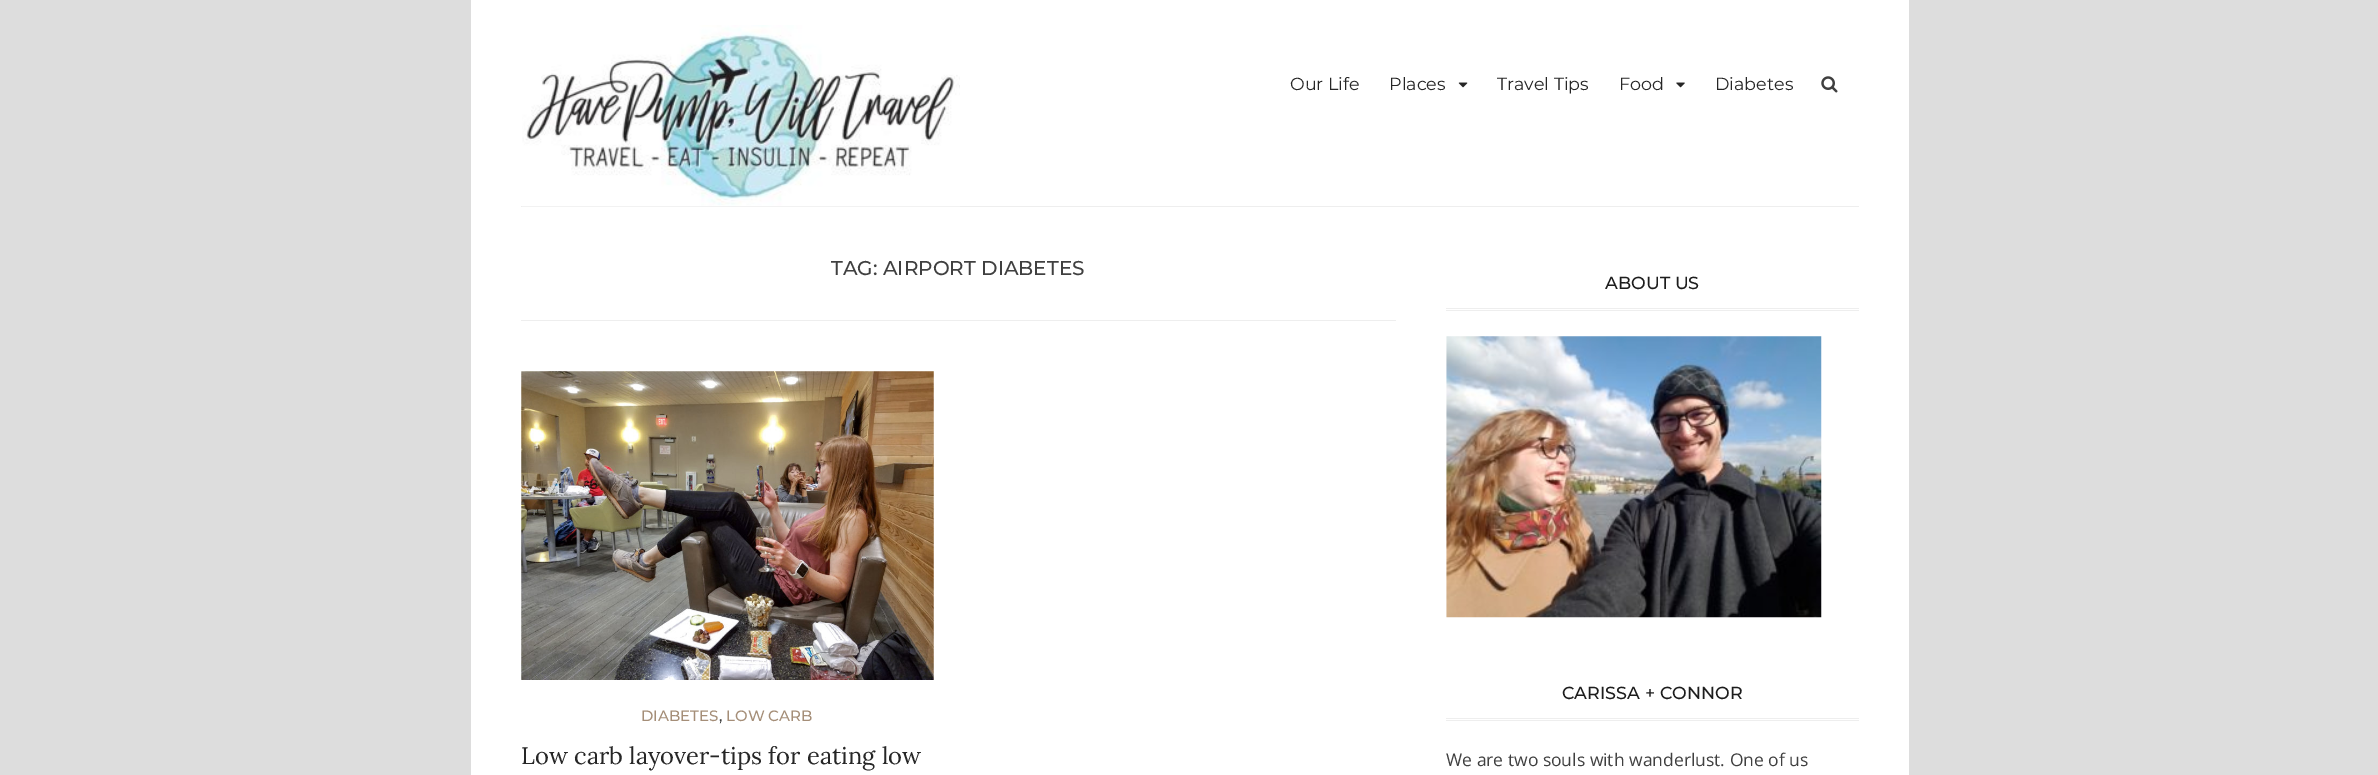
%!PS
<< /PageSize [2378 775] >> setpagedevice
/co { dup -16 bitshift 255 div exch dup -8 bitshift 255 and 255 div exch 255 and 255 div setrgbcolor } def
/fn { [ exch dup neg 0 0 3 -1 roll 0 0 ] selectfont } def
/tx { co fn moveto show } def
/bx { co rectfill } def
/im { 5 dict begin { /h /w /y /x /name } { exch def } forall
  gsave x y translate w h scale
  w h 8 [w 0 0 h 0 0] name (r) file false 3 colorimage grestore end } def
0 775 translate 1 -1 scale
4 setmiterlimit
0 0 2378 775 16#DDDDDD bx
471 0 1438 775 16#FFFFFF bx
521 206 1338 1 16#EEEEEE bx
(media/1.raw) 522 25 438 182 im
(media/2.raw) 1458 82 10 6 im
(media/3.raw) 1676 82 9 6 im
(media/4.raw) 1821 76 17 17 im
521 320 875 1 16#EEEEEE bx
(media/5.raw) 521 371 413 309 im
1446 308 413 1 16#EEEEEE bx
1446 310 413 1 16#EEEEEE bx
(media/6.raw) 1446 336 376 282 im
1446 718 413 1 16#EEEEEE bx
1446 720 413 1 16#EEEEEE bx
(Our Life) 1290 90 /Montserrat-Regular 17.5 16#262626 tx
(Places) 1389 90 /Montserrat-Regular 17.5 16#262626 tx
(Travel Tips) 1497 90 /Montserrat-Regular 17.5 16#262626 tx
(Food) 1619 90 /Montserrat-Regular 17.5 16#262626 tx
(Diabetes) 1715 90 /Montserrat-Regular 17.5 16#262626 tx
(TAG: AIRPORT DIABETES) 831 275 /Montserrat-Medium 20 16#404040 tx
(DIABETES) 641 721 /Montserrat-Medium 15 16#A58E78 tx
(,) 719 721 /Montserrat-Medium 15 16#404040 tx
(LOW CARB) 726 721 /Montserrat-Medium 15 16#A58E78 tx
(Low carb layover-tips for eating low) 521 764 /Lora-Regular 23.75 16#262626 tx
(ABOUT US) 1605 289 /Montserrat-Medium 17.5 16#1D1D1D tx
(CARISSA + CONNOR) 1562 699 /Montserrat-Medium 17.5 16#1D1D1D tx
(We are two souls with wanderlust. One of us) 1446 766 /OpenSans-Regular 17.5 16#404040 tx
showpage
